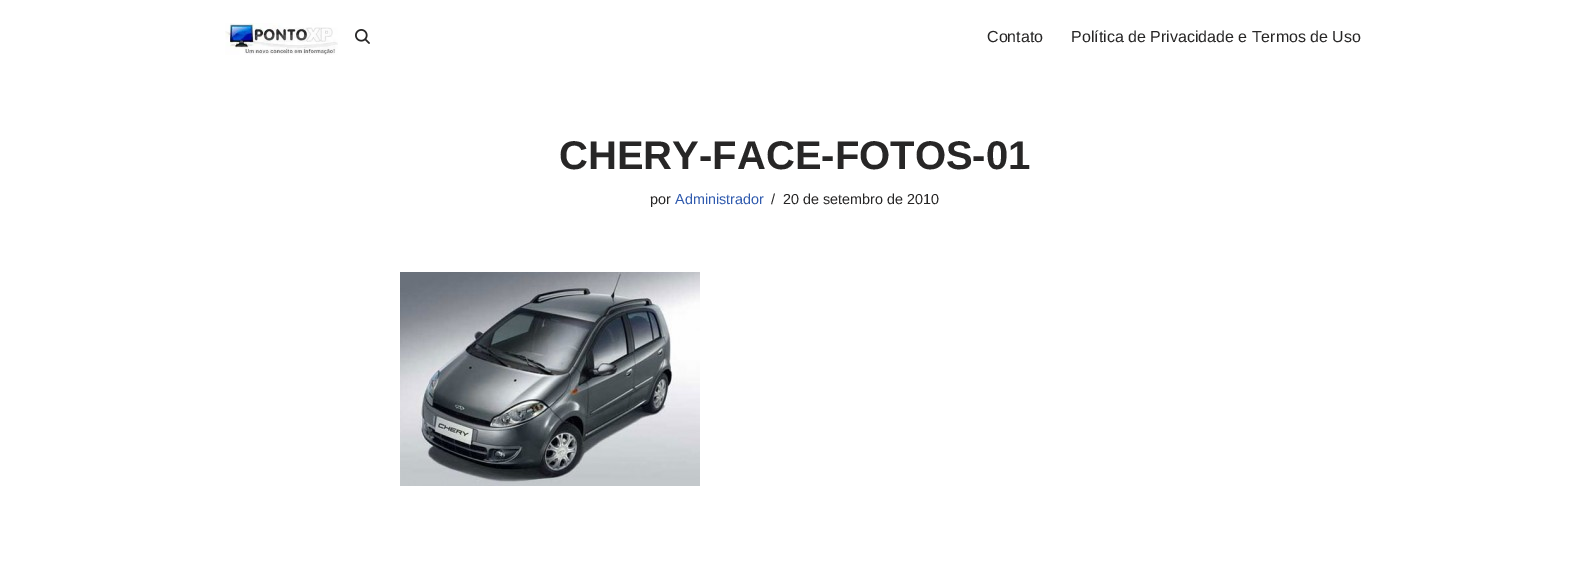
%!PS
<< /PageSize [1589 578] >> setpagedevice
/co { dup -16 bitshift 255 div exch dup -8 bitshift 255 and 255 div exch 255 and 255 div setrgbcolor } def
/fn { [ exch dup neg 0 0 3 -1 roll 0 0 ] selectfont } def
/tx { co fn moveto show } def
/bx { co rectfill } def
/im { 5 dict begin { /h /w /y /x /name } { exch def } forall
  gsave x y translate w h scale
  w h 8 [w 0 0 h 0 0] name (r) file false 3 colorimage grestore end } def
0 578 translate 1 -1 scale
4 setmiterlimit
0 0 1589 578 16#FFFFFF bx
(media/1.raw) 225 23 113 32 im
(media/2.raw) 355 29 15 15 im
(media/3.raw) 400 272 300 214 im
(Contato) 987 42 /LiberationSans-Regular 16 16#272626 tx
(Política de Privacidade e Termos de Uso) 1071 42 /LiberationSans-Regular 16 16#272626 tx
(CHERY-FACE-FOTOS-01) 559 169 /LiberationSans-Bold 40 16#272626 tx
(por) 650 204 /LiberationSans-Regular 14.4 16#272626 tx
(Administrador) 675 204 /LiberationSans-Regular 14.4 16#2F5AAE tx
(/) 771 204 /LiberationSans-Regular 14.4 16#272626 tx
(20 de setembro de 2010) 783 204 /LiberationSans-Regular 14.4 16#272626 tx
showpage
